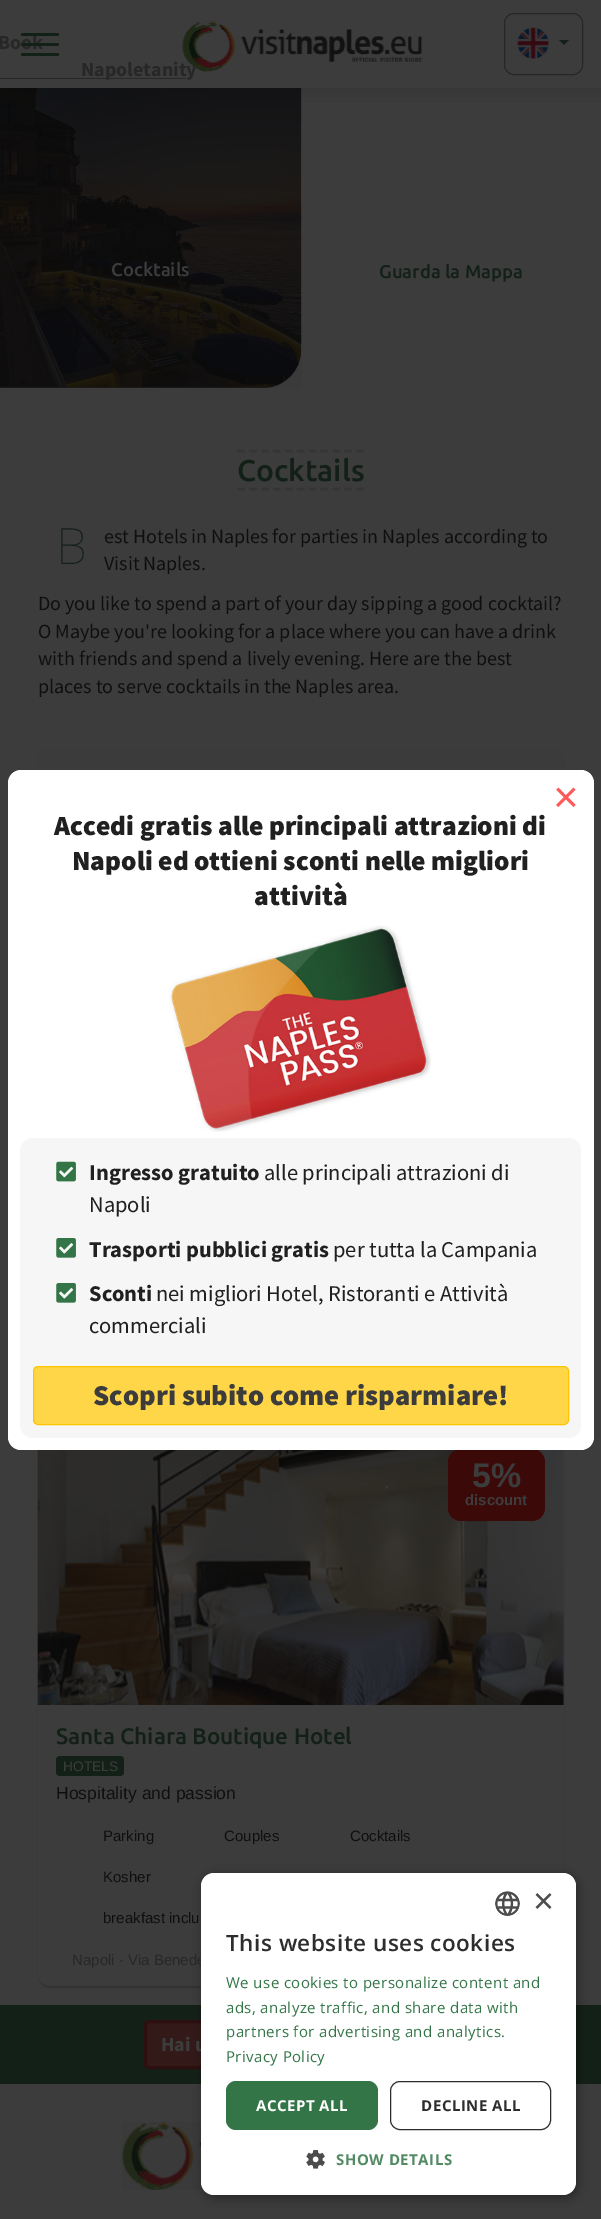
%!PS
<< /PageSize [601 2219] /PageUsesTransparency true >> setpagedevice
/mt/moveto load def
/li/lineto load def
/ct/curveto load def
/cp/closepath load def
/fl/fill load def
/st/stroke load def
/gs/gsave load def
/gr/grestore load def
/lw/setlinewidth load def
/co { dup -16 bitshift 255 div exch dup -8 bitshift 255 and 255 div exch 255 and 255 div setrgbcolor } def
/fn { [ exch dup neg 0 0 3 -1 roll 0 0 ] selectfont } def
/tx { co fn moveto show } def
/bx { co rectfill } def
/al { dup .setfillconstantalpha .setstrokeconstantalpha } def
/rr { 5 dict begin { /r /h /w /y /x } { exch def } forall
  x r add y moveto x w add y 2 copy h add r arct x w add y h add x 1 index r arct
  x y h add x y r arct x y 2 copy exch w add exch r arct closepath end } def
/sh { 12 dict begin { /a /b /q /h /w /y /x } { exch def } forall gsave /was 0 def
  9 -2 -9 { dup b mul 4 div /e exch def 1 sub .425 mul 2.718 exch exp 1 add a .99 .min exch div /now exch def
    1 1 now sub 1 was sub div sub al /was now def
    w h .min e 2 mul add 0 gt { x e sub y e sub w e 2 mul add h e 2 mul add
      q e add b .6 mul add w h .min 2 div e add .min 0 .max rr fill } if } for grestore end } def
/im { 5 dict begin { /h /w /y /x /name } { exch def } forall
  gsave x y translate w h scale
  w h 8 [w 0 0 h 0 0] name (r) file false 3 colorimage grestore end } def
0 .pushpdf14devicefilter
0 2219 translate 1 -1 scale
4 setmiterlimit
0 0 601 2219 16#3C3C3C bx
(media/3.raw) 0 88 302 300 im
0.6 al
16#090909 co
0 75 mt 0 388 li 263 388 li 284 388 301 371 301 350 ct 301 75 li cp fl
1 al
3 3 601 87 0 10 .2 sh
0 0 601 88 16#3C3C3C bx
16#132017 co
21 53 38 3 1.5 rr fl
0 78 186 1 16#272727 bx
(media/1.raw) 182 21 241 51 im
504.5 13.5 78 61 9.5 rr st
(media/2.raw) 517 27 33 32 im
16#132017 co
559 40 mt 569 40 li 564 45 li cp fl
16#353535 co
2.5 lw
[7.5 4.38] 0 setdash
237.5 451 mt 364 451 li st
237.5 489 mt 364 489 li st
16#090909 co
38 750 526 55 10 1 .24 sh
16#3B3B3B co
38 749 526 55 10 rr fl
16#090909 co
38 1431 526 557 13 1 .24 sh
16#3C3C3C co
38 1430 526 556 13 rr fl
(media/4.raw) 37 1450 527 255 im
16#3C0909 co
448 1449 97 72 13 rr fl
16#132017 co
56 1756 68 20 4 rr fl
0 2005 601 79 16#132017 bx
16#341919 co
145.5 2021.5 311 46 3.5 rr gs fl gr
16#2C0F0E co
3 lw
[] 0 setdash
st
(media/5.raw) 122 2122 79 68 im
16#FFFFFF co
8 770 586 680 13 rr fl
(media/6.raw) 169 925 262 207 im
16#F6F6F6 co
20 1138 561 300 13 rr fl
(media/7.raw) 56 1161 20 21 im
(media/8.raw) 56 1238 20 20 im
(media/8.raw) 56 1283 20 20 im
16#FFD647 co
33.5 1366.5 535 58 4.5 rr gs fl gr
16#FDC500 co
1 lw
st
16#000000 co
203 1875 375 323 13 5 .35 sh
(Book) -2 49 /SourceSansPro-Bold 20 16#272727 tx
16#132017 co
21 43 38 3 1.5 rr fl
21 33 38 3 1.5 rr fl
(Napoletanity) 81 76 /SourceSansPro-Bold 20 16#272727 tx
(Cocktails) 111 276 /Ubuntu-Medium 18.5 16#3C3C3C tx
(Guarda la Mappa) 379 278 /Ubuntu-Medium 18.5 16#132017 tx
(Cocktails) 237 481 /Ubuntu-Medium 30 16#132017 tx
(B) 56 564 /NotoSans-Thin 50 16#132017 tx
(est Hotels in Naples for parties in Naples according to) 104 543 /SourceSansPro-Regular 20 16#0F0F0F tx
(Visit Naples.) 104 570 /SourceSansPro-Regular 20 16#0F0F0F tx
(Do you like to spend a part of your day sipping a good cocktail?) 38 610 /SourceSansPro-Regular 20 16#0F0F0F tx
(O Maybe you're looking for a place where you can have a drink) 38 638 /SourceSansPro-Regular 20 16#0F0F0F tx
(with friends and spend a lively evening. Here are the best) 38 665 /SourceSansPro-Regular 20 16#0F0F0F tx
(places to serve cocktails in the Naples area.) 38 693 /SourceSansPro-Regular 20 16#0F0F0F tx
(5%) 472 1487 /LiberationSans-Bold 34 16#3C3C3C tx
(discount) 465 1505 /LiberationSans-Bold 15 16#3C3C3C tx
(Santa Chiara Boutique Hotel) 56 1744 /Ubuntu-Medium 22.5 16#132017 tx
(HOTELS) 63 1771 /LiberationSans-Regular 13.75 16#3C3C3C tx
(Hospitality and passion) 56 1799 /LiberationSans-Regular 17.5 16#0F0F0F tx
(Parking) 103 1841 /LiberationSans-Regular 15 16#0F0F0F tx
(Couples) 224 1841 /LiberationSans-Regular 15 16#0F0F0F tx
(Cocktails) 350 1841 /LiberationSans-Regular 15 16#0F0F0F tx
(Kosher) 103 1882 /LiberationSans-Regular 15 16#0F0F0F tx
(breakfast inclu) 103 1923 /LiberationSans-Regular 15 16#0F0F0F tx
(Napoli - Via Benede) 72 1965 /LiberationSans-Regular 15 16#272727 tx
(Hai u) 161 2051 /SourceSansPro-Bold 20 16#3C3C3C tx
(×) 553 812 /LiberationSans-Regular 44 16#FF5959 tx
(Accedi gratis alle principali attrazioni di) 54 835 /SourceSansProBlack-Black 27.5 16#202020 tx
(Napoli ed ottieni sconti nelle migliori) 72 870 /SourceSansProBlack-Black 27.5 16#202020 tx
(attività) 254 905 /SourceSansProBlack-Black 27.5 16#202020 tx
(Ingresso gratuito) 89 1180 /SourceSansPro-Bold 22.5 16#202020 tx
(alle principali attrazioni di) 264 1180 /SourceSansPro-Regular 22.5 16#202020 tx
(Napoli) 89 1212 /SourceSansPro-Regular 22.5 16#202020 tx
(Trasporti pubblici gratis) 89 1257 /SourceSansPro-Bold 22.5 16#202020 tx
(per tutta la Campania) 333 1257 /SourceSansPro-Regular 22.5 16#202020 tx
(Sconti) 89 1301 /SourceSansPro-Bold 22.5 16#202020 tx
(nei migliori Hotel, Ristoranti e Attività) 156 1301 /SourceSansPro-Regular 22.5 16#202020 tx
(commerciali) 89 1333 /SourceSansPro-Regular 22.5 16#202020 tx
(Scopri subito come risparmiare!) 93 1405 /SourceSansProBlack-Black 28.75 16#3C3C3C tx
16#FFFFFF co
201 1873 375 322 13 rr fl
(media/9.raw) 495 1891 25 25 im
(×) 533 1913 /LiberationSans-Regular 36 16#4D4D4D tx
/OpenSans-SemiBold 22.5 fn
16#2D2D2D co
226 1951 mt .5 0 (This website uses cookies) ashow
/OpenSans-Regular 15 fn
16#337547 co
226 1988 mt .4 0 (We use cookies to personalize content and) ashow
226 2013 mt .4 0 (ads, analyze traffic, and share data with) ashow
226 2037 mt .4 0 (partners for advertising and analytics.) ashow
226 2062 mt .4 0 (Privacy Policy) ashow
226 2081 152 49 10 rr fl
/OpenSans-Bold 15 fn
16#FFFFFF co
256 2111 mt .5 0 (ACCEPT ALL) ashow
16#2D2D2D co
390.5 2081.5 160 48 9.5 rr st
421 2111 mt .5 0 (DECLINE ALL) ashow
(media/10.raw) 306 2150 19 19 im
16#528A63 co
336 2165 mt .5 0 (SHOW DETAILS) ashow
.poppdf14devicefilter showpage
